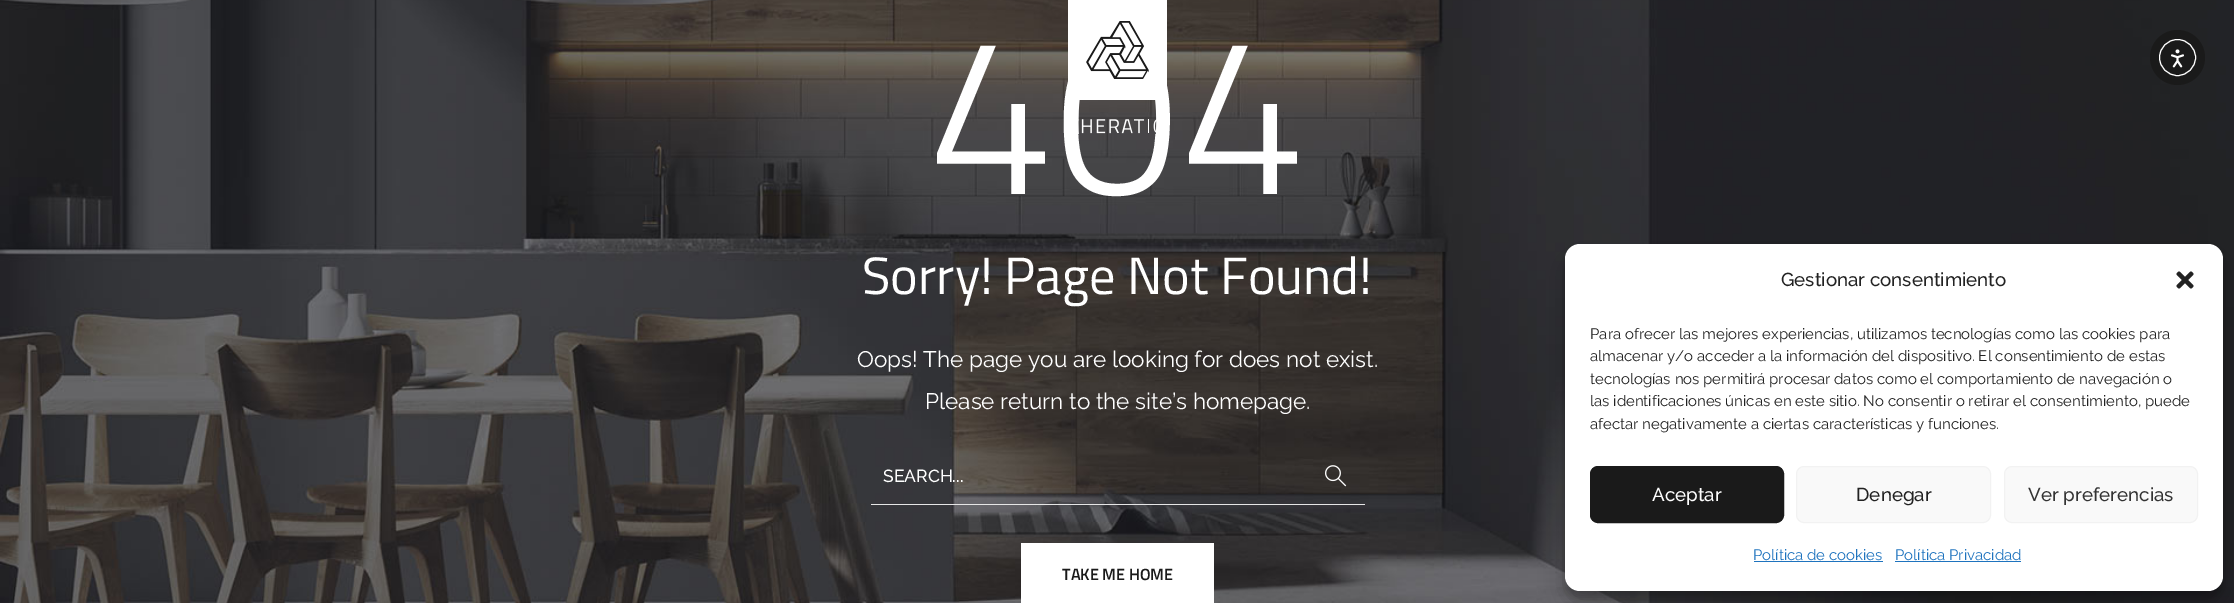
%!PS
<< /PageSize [2234 603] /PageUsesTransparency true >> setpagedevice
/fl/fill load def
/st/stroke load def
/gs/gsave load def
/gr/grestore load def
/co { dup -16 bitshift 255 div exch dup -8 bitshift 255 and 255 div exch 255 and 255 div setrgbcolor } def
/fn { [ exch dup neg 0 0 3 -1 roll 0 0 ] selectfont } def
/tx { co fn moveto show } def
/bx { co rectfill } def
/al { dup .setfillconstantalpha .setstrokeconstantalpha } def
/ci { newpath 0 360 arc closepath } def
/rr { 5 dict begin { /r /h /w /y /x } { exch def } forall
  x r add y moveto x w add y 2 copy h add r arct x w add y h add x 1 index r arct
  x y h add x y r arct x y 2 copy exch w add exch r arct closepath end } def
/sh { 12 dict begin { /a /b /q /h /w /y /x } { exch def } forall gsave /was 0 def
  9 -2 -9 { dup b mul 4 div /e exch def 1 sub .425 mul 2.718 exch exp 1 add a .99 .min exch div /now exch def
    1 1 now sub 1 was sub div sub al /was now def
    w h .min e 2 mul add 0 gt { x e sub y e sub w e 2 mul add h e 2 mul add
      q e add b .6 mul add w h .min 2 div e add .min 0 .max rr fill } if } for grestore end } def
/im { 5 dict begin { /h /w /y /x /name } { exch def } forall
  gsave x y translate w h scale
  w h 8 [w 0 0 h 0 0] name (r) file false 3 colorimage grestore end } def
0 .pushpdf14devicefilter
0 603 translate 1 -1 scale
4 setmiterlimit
0 0 2234 603 16#FFFFFF bx
(media/1.raw) 0 0 2234 603 im
871 504 494 1 16#E6E6E6 bx
(media/3.raw) 1325 465 22 22 im
1021 543 193 60 16#FFFFFF bx
16#1A1A1A co
2177.5 57.5 27.5 ci fl
16#FFFFFF co
2177.5 57.5 18 ci st
(media/4.raw) 2170 49 14 19 im
16#000000 co
1565 251 658 348 15 4 .23 sh
1565 256 658 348 15 12.5 .19 sh
16#FFFFFF co
1565 244 658 347 15 rr fl
(media/5.raw) 2176 271 18 18 im
16#1A1A1A co
1590.5 466.5 193 56 7.5 rr gs fl gr
st
16#F9F9F9 co
1796.5 466.5 194 56 7.5 rr gs fl gr
16#F2F2F2 co
st
16#F9F9F9 co
2004.5 466.5 193 56 7.5 rr gs fl gr
16#F2F2F2 co
st
1754 561 129 1 16#1E73BE bx
1895 561 126 1 16#1E73BE bx
(404) 928 194 /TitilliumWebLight-Light 225 16#FFFFFF tx
(media/2.raw) 1068 0 99 134 im
(Sorry! Page Not Found!) 862 294 /TitilliumWeb-Regular 52.5 16#FFFFFF tx
(Oops! The page you are looking for does not exist.) 857 367 /Raleway-Regular 22.5 16#FFFFFF tx
(Please return to the site’s homepage.) 925 409 /Raleway-Regular 22.5 16#FFFFFF tx
(SEARCH...) 883 482 /Raleway-Medium 17.5 16#FFFFFF tx
(TAKE ME HOME) 1062 580 /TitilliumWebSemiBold-SemiBold 16.25 16#1A1A1A tx
(Gestionar consentimiento) 1781 286 /Raleway-Medium 18.75 16#222222 tx
(Para ofrecer las mejores experiencias, utilizamos tecnologías como las cookies para) 1590 339 /Raleway-Regular 15 16#222222 tx
(almacenar y/o acceder a la información del dispositivo. El consentimiento de estas) 1590 361 /Raleway-Regular 15 16#222222 tx
(tecnologías nos permitirá procesar datos como el comportamiento de navegación o) 1590 384 /Raleway-Regular 15 16#222222 tx
(las identificaciones únicas en este sitio. No consentir o retirar el consentimiento, puede) 1590 406 /Raleway-Regular 15 16#222222 tx
(afectar negativamente a ciertas características y funciones.) 1590 429 /Raleway-Regular 15 16#222222 tx
(Aceptar) 1652 501 /Raleway-Medium 18.75 16#FFFFFF tx
(Denegar) 1856 501 /Raleway-Medium 18.75 16#222222 tx
(Ver preferencias) 2028 501 /Raleway-Medium 18.75 16#333333 tx
(Política de cookies) 1753 560 /Raleway-Regular 15 16#1E73BE tx
(Política Privacidad) 1895 560 /Raleway-Regular 15 16#1E73BE tx
.poppdf14devicefilter showpage
